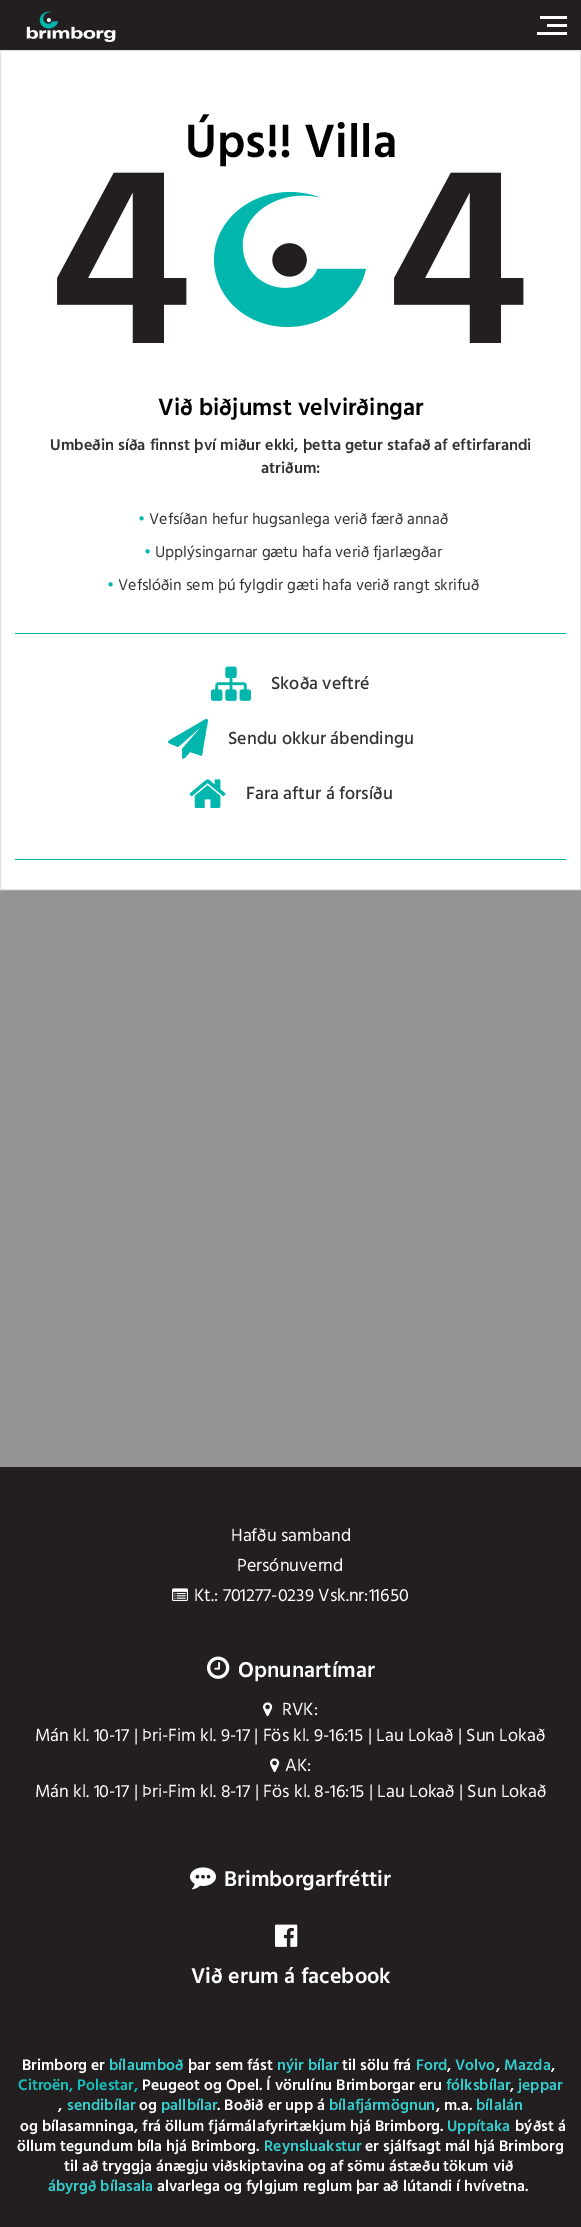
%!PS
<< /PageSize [581 2227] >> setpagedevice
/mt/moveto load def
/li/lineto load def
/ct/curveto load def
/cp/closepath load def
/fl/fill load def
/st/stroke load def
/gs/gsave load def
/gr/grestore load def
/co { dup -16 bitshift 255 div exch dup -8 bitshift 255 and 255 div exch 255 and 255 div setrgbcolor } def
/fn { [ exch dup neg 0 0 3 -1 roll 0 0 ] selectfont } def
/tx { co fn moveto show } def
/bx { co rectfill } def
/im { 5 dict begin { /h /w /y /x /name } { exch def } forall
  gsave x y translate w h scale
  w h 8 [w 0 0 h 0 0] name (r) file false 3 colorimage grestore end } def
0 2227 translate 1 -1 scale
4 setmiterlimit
0 0 581 2227 16#949494 bx
0 0 581 50 16#231F20 bx
(media/1.raw) 26 11 90 31 im
540 16 27 3 16#FFFFFF bx
547 24 20 3 16#FFFFFF bx
537 32 30 3 16#FFFFFF bx
.5 50.5 mt 580.5 50.5 li 580.5 889.5 li .5 889.5 li cp gs fl gr
16#E4E4E4 co
st
(media/2.raw) 57 172 467 171 im
15 633 551 1 16#00B6AD bx
15 859 551 1 16#00B6AD bx
(media/3.raw) 211 666 40 35 im
207 719 mt 208 720 li 203 749 li 202 755 203 757 199 755 ct 190 752 li 182 761 182 762 182 749 ct 202 726 li 178 747 li 167 742 164 743 175 737 ct 206 719 li cp fl
(media/4.raw) 189 779 37 29 im
0 1467 581 760 16#231F20 bx
(media/5.raw) 172 1588 16 13 im
(media/6.raw) 207 1656 23 23 im
(media/7.raw) 263 1702 10 15 im
(media/7.raw) 270 1758 10 15 im
(media/8.raw) 190 1867 26 23 im
(media/9.raw) 275 1924 23 23 im
(Úps!! Villa) 185 157 /Hind-SemiBold 48 16#000000 tx
(Við biðjumst velvirðingar) 158 415 /Hind-SemiBold 24 16#000000 tx
(Umbeðin síða finnst því miður ekki, þetta getur stafað af eftirfarandi) 50 450 /Hind-SemiBold 16 16#333333 tx
(atriðum:) 261 473 /Hind-SemiBold 16 16#333333 tx
(•) 138 524 /Hind-Regular 16 16#00B6AD tx
(Vefsíðan hefur hugsanlega verið færð annað) 149 524 /Hind-Regular 16 16#333333 tx
(•) 144 557 /Hind-Regular 16 16#00B6AD tx
(Upplýsingarnar gætu hafa verið fjarlægðar) 155 557 /Hind-Regular 16 16#333333 tx
(•) 107 590 /Hind-Regular 16 16#00B6AD tx
(Vefslóðin sem þú fylgdir gæti hafa verið rangt skrifuð) 118 590 /Hind-Regular 16 16#333333 tx
(Skoða veftré) 271 689 /Hind-Medium 18 16#333333 tx
(Sendu okkur ábendingu) 228 744 /Hind-Medium 18 16#333333 tx
(Fara aftur á forsíðu) 246 799 /Hind-Medium 18 16#333333 tx
(Hafðu samband) 231 1541 /Hind-Regular 18 16#FFFFFF tx
(Persónuvernd) 237 1571 /Hind-Regular 18 16#FFFFFF tx
(Kt.: 701277-0239 Vsk.nr:11650) 194 1601 /Hind-Regular 18 16#FFFFFF tx
(Opnunartímar) 238 1677 /Hind-SemiBold 22 16#FFFFFF tx
(RVK:) 282 1715 /Hind-Regular 18 16#FFFFFF tx
(Mán kl. 10-17 | Þri-Fim kl. 9-17 | Fös kl. 9-16:15 | Lau Lokað | Sun Lokað) 35 1741 /Hind-Regular 18 16#FFFFFF tx
(AK:) 285 1771 /Hind-Regular 18 16#FFFFFF tx
(Mán kl. 10-17 | Þri-Fim kl. 8-17 | Fös kl. 8-16:15 | Lau Lokað | Sun Lokað) 35 1797 /Hind-Regular 18 16#FFFFFF tx
(Brimborgarfréttir) 224 1886 /Hind-SemiBold 22 16#FFFFFF tx
(Við erum á facebook) 191 1983 /Hind-SemiBold 22 16#FFFFFF tx
(Brimborg er) 22 2070 /Hind-SemiBold 15.75 16#FFFFFF tx
(bílaumboð) 109 2070 /Hind-SemiBold 15.75 16#33CCCC tx
(þar sem fást) 188 2070 /Hind-SemiBold 15.75 16#FFFFFF tx
(nýir bílar) 277 2070 /Hind-SemiBold 15.75 16#33CCCC tx
(til sölu frá) 342 2070 /Hind-SemiBold 15.75 16#FFFFFF tx
(Ford) 416 2070 /Hind-SemiBold 15.75 16#33CCCC tx
(,) 447 2070 /Hind-SemiBold 15.75 16#FFFFFF tx
(Volvo) 455 2070 /Hind-SemiBold 15.75 16#33CCCC tx
(,) 496 2070 /Hind-SemiBold 15.75 16#FFFFFF tx
(Mazda) 504 2070 /Hind-SemiBold 15.75 16#33CCCC tx
(,) 551 2070 /Hind-SemiBold 15.75 16#FFFFFF tx
(Citroën, Polestar,) 18 2090 /Hind-SemiBold 15.75 16#15C2BA tx
(Peugeot og Opel. Í vörulínu Brimborgar eru) 142 2090 /Hind-SemiBold 15.75 16#FFFFFF tx
(fólksbílar) 446 2090 /Hind-SemiBold 15.75 16#33CCCC tx
(,) 510 2090 /Hind-SemiBold 15.75 16#FFFFFF tx
(jeppar) 518 2090 /Hind-SemiBold 15.75 16#33CCCC tx
(,) 58 2110 /Hind-SemiBold 15.75 16#FFFFFF tx
(sendibílar) 67 2110 /Hind-SemiBold 15.75 16#33CCCC tx
(og) 139 2110 /Hind-SemiBold 15.75 16#FFFFFF tx
(pallbílar) 161 2110 /Hind-SemiBold 15.75 16#33CCCC tx
(. Boðið er upp á) 217 2110 /Hind-SemiBold 15.75 16#FFFFFF tx
(bílafjármögnun) 329 2110 /Hind-SemiBold 15.75 16#33CCCC tx
(, m.a.) 436 2110 /Hind-SemiBold 15.75 16#FFFFFF tx
(bílalán) 476 2110 /Hind-SemiBold 15.75 16#33CCCC tx
(og bílasamninga, frá öllum fjármálafyrirtækjum hjá Brimborg.) 20 2131 /Hind-SemiBold 15.75 16#FFFFFF tx
(Uppítaka) 447 2131 /Hind-SemiBold 15.75 16#33CCCC tx
(býðst á) 515 2131 /Hind-SemiBold 15.75 16#FFFFFF tx
(öllum tegundum bíla hjá Brimborg.) 17 2151 /Hind-SemiBold 15.75 16#FFFFFF tx
(Reynsluakstur) 264 2151 /Hind-SemiBold 15.75 16#33CCCC tx
(er sjálfsagt mál hjá Brimborg) 365 2151 /Hind-SemiBold 15.75 16#FFFFFF tx
(til að tryggja ánægju viðskiptavina og af sömu ástæðu tökum við) 64 2171 /Hind-SemiBold 15.75 16#FFFFFF tx
(ábyrgð bílasala) 48 2191 /Hind-SemiBold 15.75 16#33CCCC tx
(alvarlega og fylgjum reglum þar að lútandi í hvívetna.) 157 2191 /Hind-SemiBold 15.75 16#FFFFFF tx
showpage
